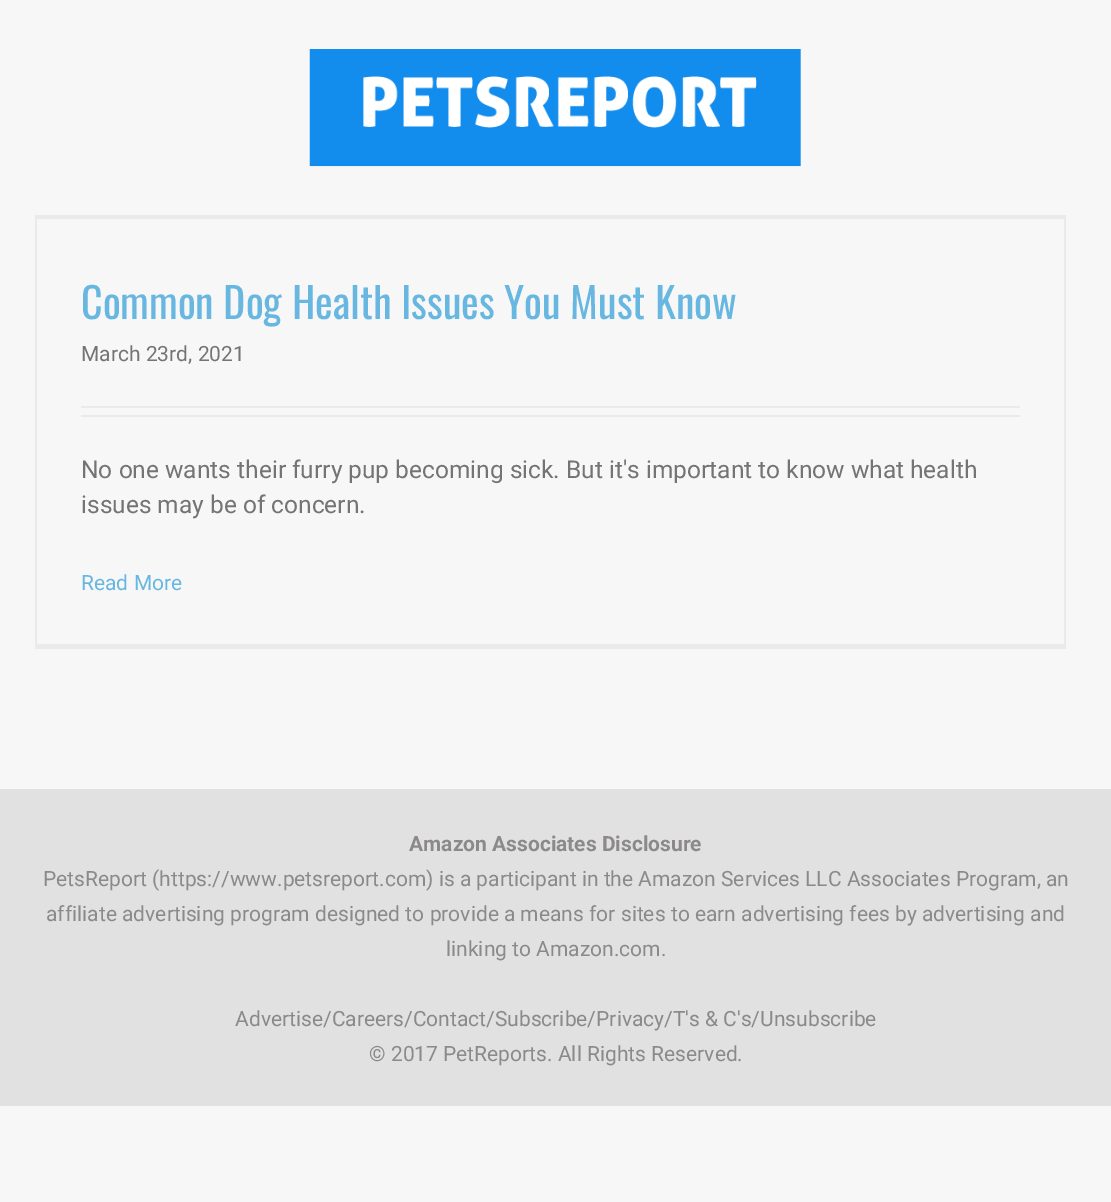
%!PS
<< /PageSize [1111 1202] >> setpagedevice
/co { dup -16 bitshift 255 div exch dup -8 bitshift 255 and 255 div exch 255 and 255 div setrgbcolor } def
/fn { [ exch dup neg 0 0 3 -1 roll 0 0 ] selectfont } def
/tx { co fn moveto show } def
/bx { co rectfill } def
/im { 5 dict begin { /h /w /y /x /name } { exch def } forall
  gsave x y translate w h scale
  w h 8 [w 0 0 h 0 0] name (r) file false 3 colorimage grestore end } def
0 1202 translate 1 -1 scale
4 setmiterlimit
0 0 1111 1202 16#F7F7F7 bx
(media/1.raw) 309 49 492 118 im
35 215 1031 2 16#EBEAEA bx
1064 215 2 434 16#EBEAEA bx
35 644 1031 5 16#EBEAEA bx
35 215 2 434 16#EBEAEA bx
37 217 1027 2 16#EBEAEA bx
81 406 939 2 16#EBEAEA bx
81 415 939 2 16#EBEAEA bx
0 789 1111 317 16#E1E1E1 bx
(Common Dog Health Issues You Must Know) 81 319 /Oswald-Regular 42 16#67B7E1 tx
(March 23rd, 2021) 81 361 /Roboto-Regular 21 16#747474 tx
(No one wants their furry pup becoming sick. But it's important to know what health) 81 478 /Roboto-Regular 24.5 16#747474 tx
(issues may be of concern.) 81 513 /Roboto-Regular 24.5 16#747474 tx
(Read More) 81 590 /Roboto-Regular 21 16#67B7E1 tx
(Amazon Associates Disclosure) 409 851 /Roboto-Bold 21 16#8C8989 tx
(PetsReport \(https://www.petsreport.com\) is a participant in the Amazon Services LLC Associates Program, an) 43 886 /Roboto-Regular 21 16#8C8989 tx
(affiliate advertising program designed to provide a means for sites to earn advertising fees by advertising and) 46 921 /Roboto-Regular 21 16#8C8989 tx
(linking to Amazon.com.) 446 956 /Roboto-Regular 21 16#8C8989 tx
(Advertise/Careers/Contact/Subscribe/Privacy/T's & C's/Unsubscribe) 235 1026 /Roboto-Regular 21 16#8C8989 tx
(© 2017 PetReports. All Rights Reserved.) 369 1061 /Roboto-Regular 21 16#8C8989 tx
showpage
